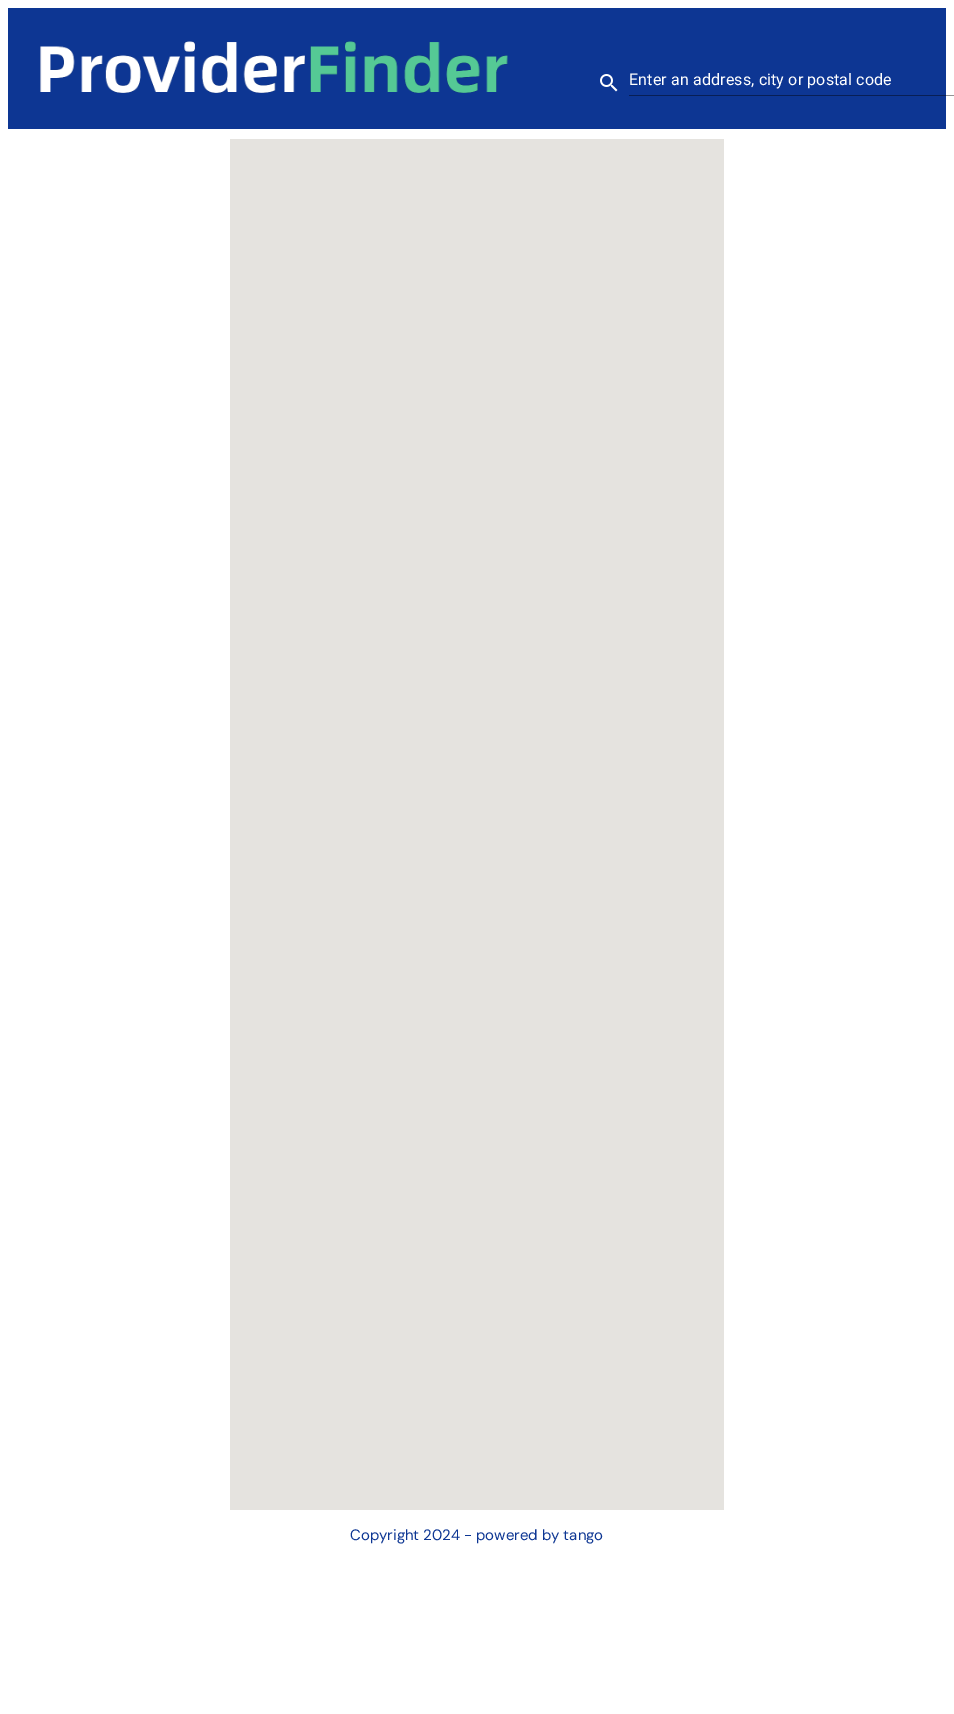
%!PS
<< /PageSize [954 1714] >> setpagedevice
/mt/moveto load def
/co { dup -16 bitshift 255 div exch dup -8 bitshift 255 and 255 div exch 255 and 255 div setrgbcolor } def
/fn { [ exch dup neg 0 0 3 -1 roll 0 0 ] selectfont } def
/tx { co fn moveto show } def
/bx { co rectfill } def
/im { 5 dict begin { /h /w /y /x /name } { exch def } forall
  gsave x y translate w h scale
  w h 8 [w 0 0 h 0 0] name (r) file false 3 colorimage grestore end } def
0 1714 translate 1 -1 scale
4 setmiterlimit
0 0 954 1714 16#FFFFFF bx
946 95 8 1 16#949494 bx
8 8 938 121 16#0D3693 bx
629 95 317 1 16#081F55 bx
(media/1.raw) 40 41 468 52 im
(media/2.raw) 600 74 18 18 im
230 139 494 1371 16#E5E3DF bx
/Roboto-Regular 16 fn
16#FFFFFF co
629 85 mt .15 0 (Enter an address, city or postal code) ashow
(Copyright 2024 - powered by tango) 350 1540 /DMSans-Regular 15 16#0D3693 tx
showpage
